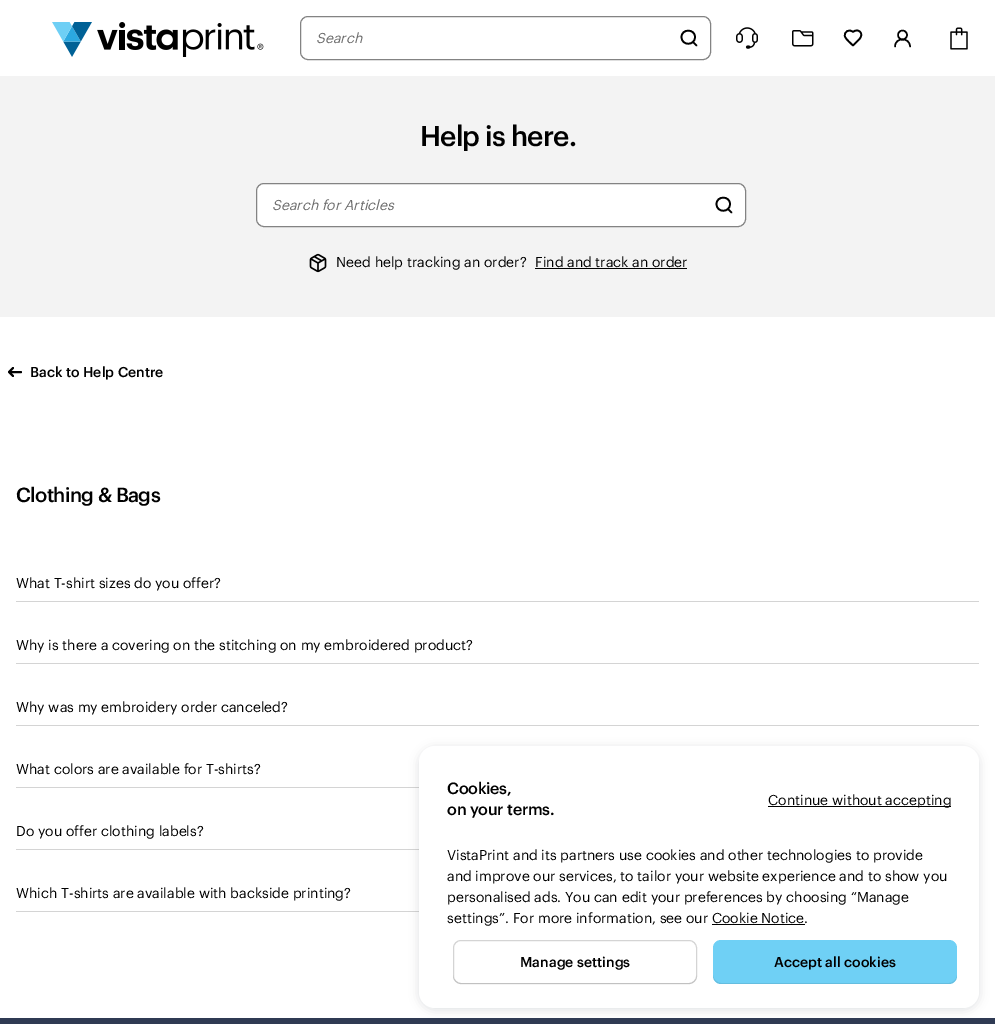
%!PS
<< /PageSize [995 1024] /PageUsesTransparency true >> setpagedevice
/mt/moveto load def
/li/lineto load def
/ct/curveto load def
/cp/closepath load def
/fl/fill load def
/st/stroke load def
/gs/gsave load def
/gr/grestore load def
/lw/setlinewidth load def
/co { dup -16 bitshift 255 div exch dup -8 bitshift 255 and 255 div exch 255 and 255 div setrgbcolor } def
/fn { [ exch dup neg 0 0 3 -1 roll 0 0 ] selectfont } def
/tx { co fn moveto show } def
/bx { co rectfill } def
/al { dup .setfillconstantalpha .setstrokeconstantalpha } def
/ci { newpath 0 360 arc closepath } def
/rr { 5 dict begin { /r /h /w /y /x } { exch def } forall
  x r add y moveto x w add y 2 copy h add r arct x w add y h add x 1 index r arct
  x y h add x y r arct x y 2 copy exch w add exch r arct closepath end } def
/sh { 12 dict begin { /a /b /q /h /w /y /x } { exch def } forall gsave /was 0 def
  9 -2 -9 { dup b mul 4 div /e exch def 1 sub .425 mul 2.718 exch exp 1 add a .99 .min exch div /now exch def
    1 1 now sub 1 was sub div sub al /was now def
    w h .min e 2 mul add 0 gt { x e sub y e sub w e 2 mul add h e 2 mul add
      q e add b .6 mul add w h .min 2 div e add .min 0 .max rr fill } if } for grestore end } def
/im { 5 dict begin { /h /w /y /x /name } { exch def } forall
  gsave x y translate w h scale
  w h 8 [w 0 0 h 0 0] name (r) file false 3 colorimage grestore end } def
0 .pushpdf14devicefilter
0 1024 translate 1 -1 scale
4 setmiterlimit
0 0 995 1024 16#FFFFFF bx
(media/1.raw) 52 22 212 35 im
16#838383 co
300.5 16.5 410 43 7.5 rr st
16#000000 co
1.7 lw
1 setlinecap
1 setlinejoin
696.5 45.5 mt 693 42 li 695 37 mt 695 46 681.5 46 681.5 37 ct 681.5 28.5 695 28.5 695 37 ct cp st
(media/2.raw) 736 27 22 22 im
(media/3.raw) 792 30 22 17 im
859 39.5 mt 865 33.5 858 27.5 853 32 ct 849.5 28.5 843.5 31.5 845 36.5 ct 846 39.5 851 43.5 853 45.5 ct cp st
1.5 lw
0 setlinecap
0 setlinejoin
902.5 35 4.5 ci st
1 setlinecap
1 setlinejoin
895 46.5 mt 895 37 910 37 910 46.5 ct st
(media/4.raw) 950 27 18 23 im
0 76 995 241 16#F3F3F3 bx
16#FFFFFF co
256.5 183.5 489 43 7.5 rr gs fl gr
16#838383 co
1 lw
0 setlinecap
0 setlinejoin
st
16#000000 co
1.7 lw
1 setlinecap
1 setlinejoin
731.5 212.5 mt 728 209 li 730 204 mt 730 213 716.5 213 716.5 204 ct 716.5 195.5 730 195.5 730 204 ct cp st
(media/5.raw) 309 253 18 20 im
535 268 152 1 16#000000 bx
2 lw
21 372 mt 11 372 li 13 376 mt 9 372 li 13 368 li st
16 601 963 1 16#D4D4D4 bx
16 663 963 1 16#D4D4D4 bx
16 725 963 1 16#D4D4D4 bx
16 787 403 1 16#D4D4D4 bx
16 849 403 1 16#D4D4D4 bx
16 911 403 1 16#D4D4D4 bx
0 1018 995 6 16#2F3A53 bx
16#00111A co
419 748 560 262 16 5 .12 sh
16#FFFFFF co
419 746 560 262 16 rr fl
768 806 183 1 16#000000 bx
712 924 93 1 16#000000 bx
16#D4D4D4 co
1 lw
0 setlinecap
0 setlinejoin
453.5 940.5 243 43 7.5 rr st
0.09 al
16#000000 co
453 975 mt 453 976 li 453 980 457 984 461 984 ct 689 984 li 693 984 697 980 697 976 ct 697 975 li 697 979 693 983 689 983 ct 461 983 li 457 983 453 979 453 975 ct cp fl
1 al
16#6FD0F5 co
713 940 244 44 8 rr fl
0.09 al
16#000000 co
713 975 mt 713 976 li 713 980 717 984 721 984 ct 949 984 li 953 984 957 980 957 976 ct 957 975 li 957 979 953 983 949 983 ct 721 983 li 717 983 713 979 713 975 ct cp fl
1 al
(Search) 316 43 /Graphik-Italic 14 16#6C6C6C tx
/Graphik-Medium 28 fn
16#000000 co
420 146 mt -.8 0 (Help is here.) ashow
(Search for Articles) 272 210 /Graphik-Italic 14 16#6C6C6C tx
(Need help tracking an order?) 336 267 /Graphik-Regular 14 16#000000 tx
(Find and track an order) 535 267 /Graphik-Regular 14 16#000000 tx
(Back to Help Centre) 30 377 /Graphik-Medium 14 16#000000 tx
/Graphik-Medium 20 fn
16 502 mt -.6 0 (Clothing & Bags) ashow
(What T-shirt sizes do you offer?) 16 588 /Graphik-Regular 14 16#000000 tx
(Why is there a covering on the stitching on my embroidered product?) 16 650 /Graphik-Regular 14 16#000000 tx
(Why was my embroidery order canceled?) 16 712 /Graphik-Regular 14 16#000000 tx
(What colors are available for T-shirts?) 16 774 /Graphik-Regular 14 16#000000 tx
(Do you offer clothing labels?) 16 836 /Graphik-Regular 14 16#000000 tx
(Which T-shirts are available with backside printing?) 16 898 /Graphik-Regular 14 16#000000 tx
/Graphik-Medium 16 fn
447 794 mt -.25 0 (Cookies,) ashow
447 815 mt -.25 0 (on your terms.) ashow
(Continue without accepting) 768 805 /Graphik-Regular 14 16#000000 tx
(VistaPrint and its partners use cookies and other technologies to provide) 447 860 /Graphik-Regular 14 16#000000 tx
(and improve our services, to tailor your website experience and to show you) 447 881 /Graphik-Regular 14 16#000000 tx
(personalised ads. You can edit your preferences by choosing “Manage) 447 902 /Graphik-Regular 14 16#000000 tx
(settings”. For more information, see our Cookie Notice.) 447 923 /Graphik-Regular 14 16#000000 tx
(Manage settings) 520 967 /Graphik-Medium 14 16#000000 tx
(Accept all cookies) 774 967 /Graphik-Medium 14 16#000000 tx
.poppdf14devicefilter showpage
